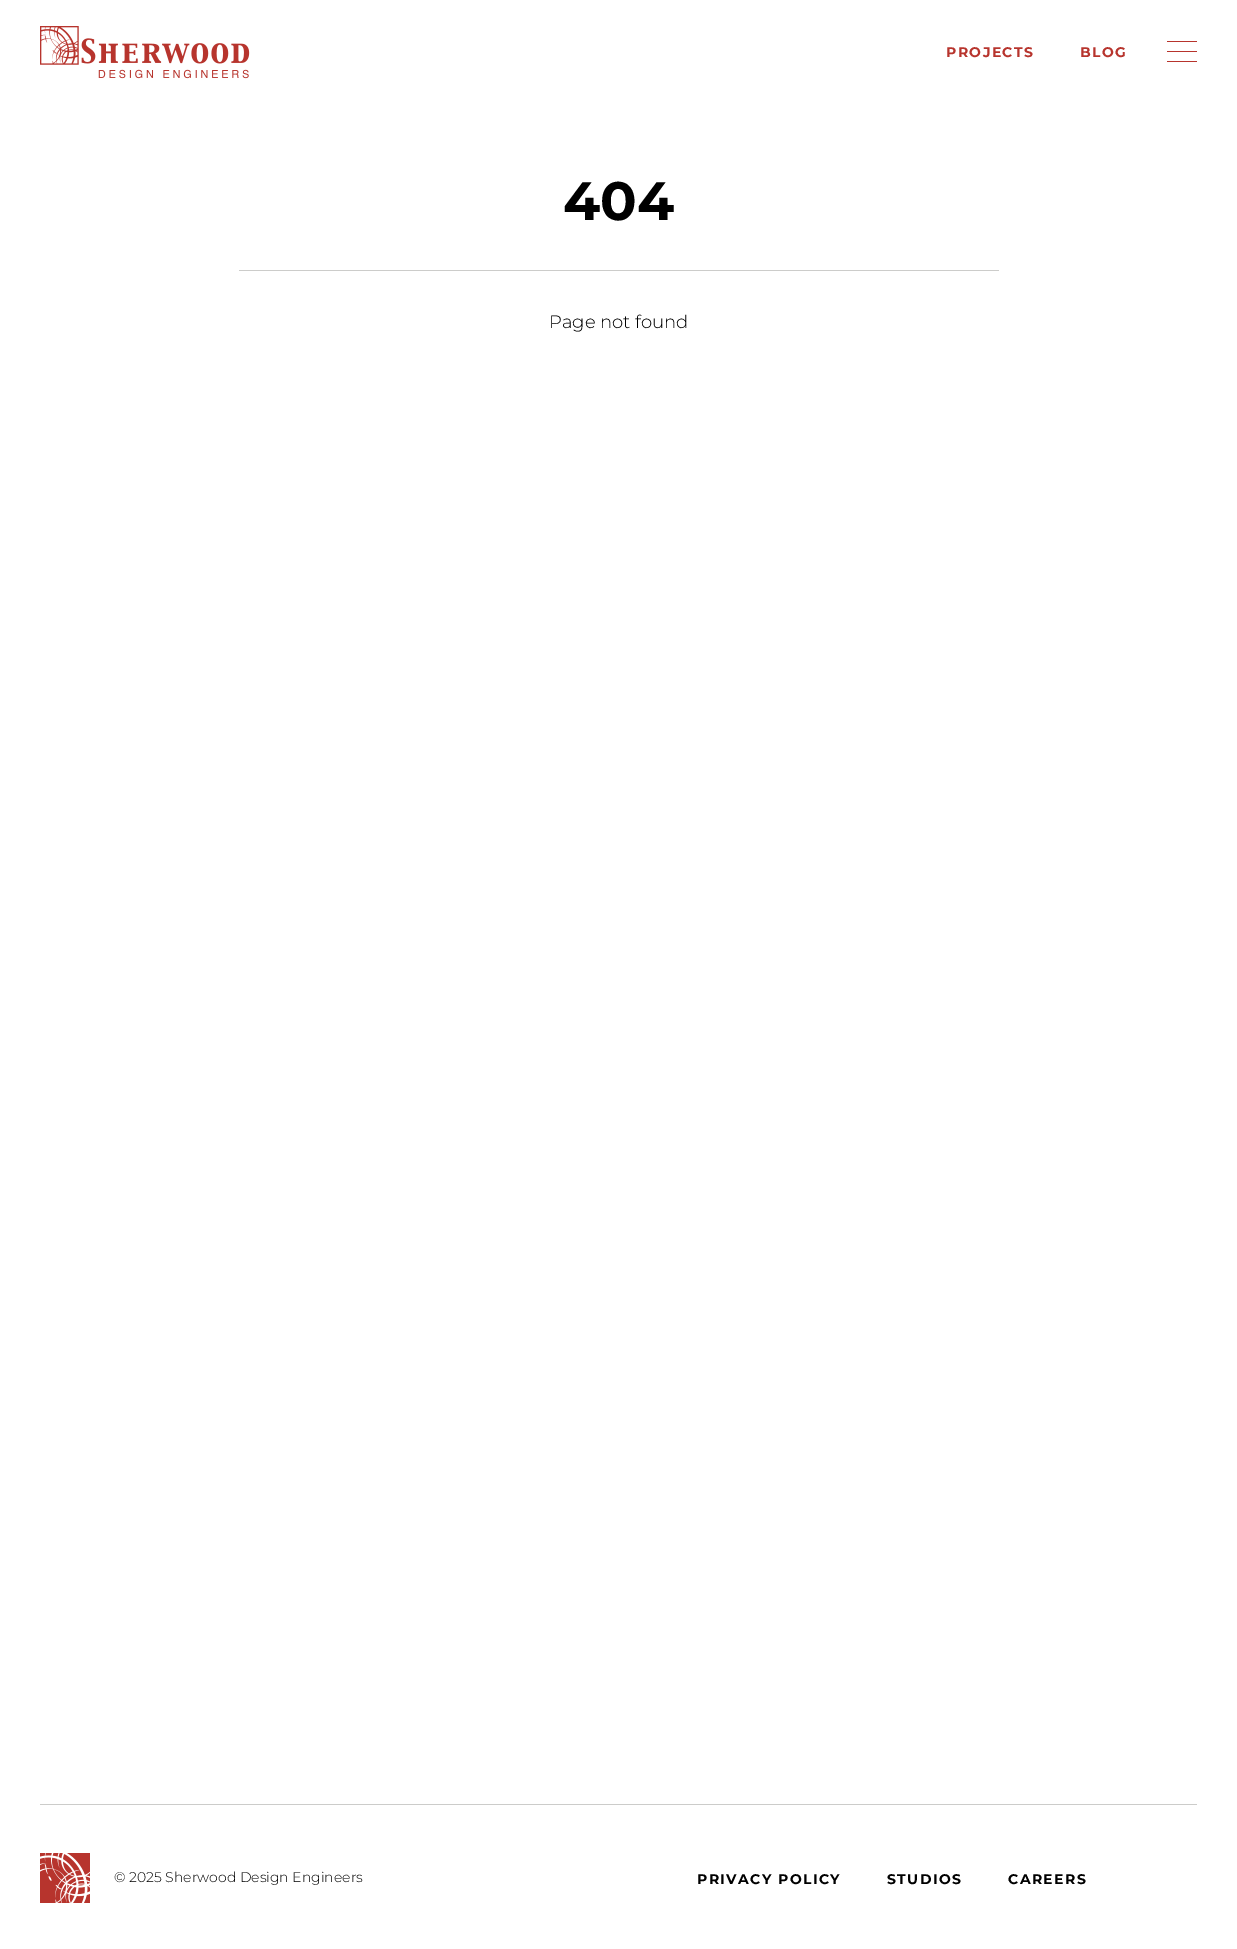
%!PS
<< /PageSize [1237 1949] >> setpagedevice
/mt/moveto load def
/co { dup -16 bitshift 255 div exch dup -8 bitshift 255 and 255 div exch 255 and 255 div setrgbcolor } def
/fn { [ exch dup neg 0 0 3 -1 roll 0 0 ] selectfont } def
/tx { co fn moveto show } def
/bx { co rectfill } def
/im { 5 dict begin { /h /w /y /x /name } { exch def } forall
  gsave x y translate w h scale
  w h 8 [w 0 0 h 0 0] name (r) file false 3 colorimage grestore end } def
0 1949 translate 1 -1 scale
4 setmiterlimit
0 0 1237 1949 16#FFFFFF bx
(media/1.raw) 40 26 210 53 im
1167 51 30 1 16#B7342D bx
1167 41 30 1 16#B7342D bx
1167 61 30 1 16#B7342D bx
239 270 760 1 16#CCCCCA bx
40 1804 1157 1 16#CCCCCA bx
(media/2.raw) 40 1853 50 50 im
/Montserrat-Bold 14 fn
16#B7342D co
946 57 mt 1.4 0 (PROJECTS) ashow
1080 57 mt 1.4 0 (BLOG) ashow
(404) 563 220 /Montserrat-Bold 54 16#000000 tx
(Page not found) 549 328 /Montserrat-Light 18 16#000000 tx
(© 2025 Sherwood Design Engineers) 114 1882 /Montserrat-Light 14 16#000000 tx
/Montserrat-Bold 14 fn
697 1884 mt 1.4 0 (PRIVACY POLICY) ashow
887 1884 mt 1.4 0 (STUDIOS) ashow
1008 1884 mt 1.4 0 (CAREERS) ashow
showpage
